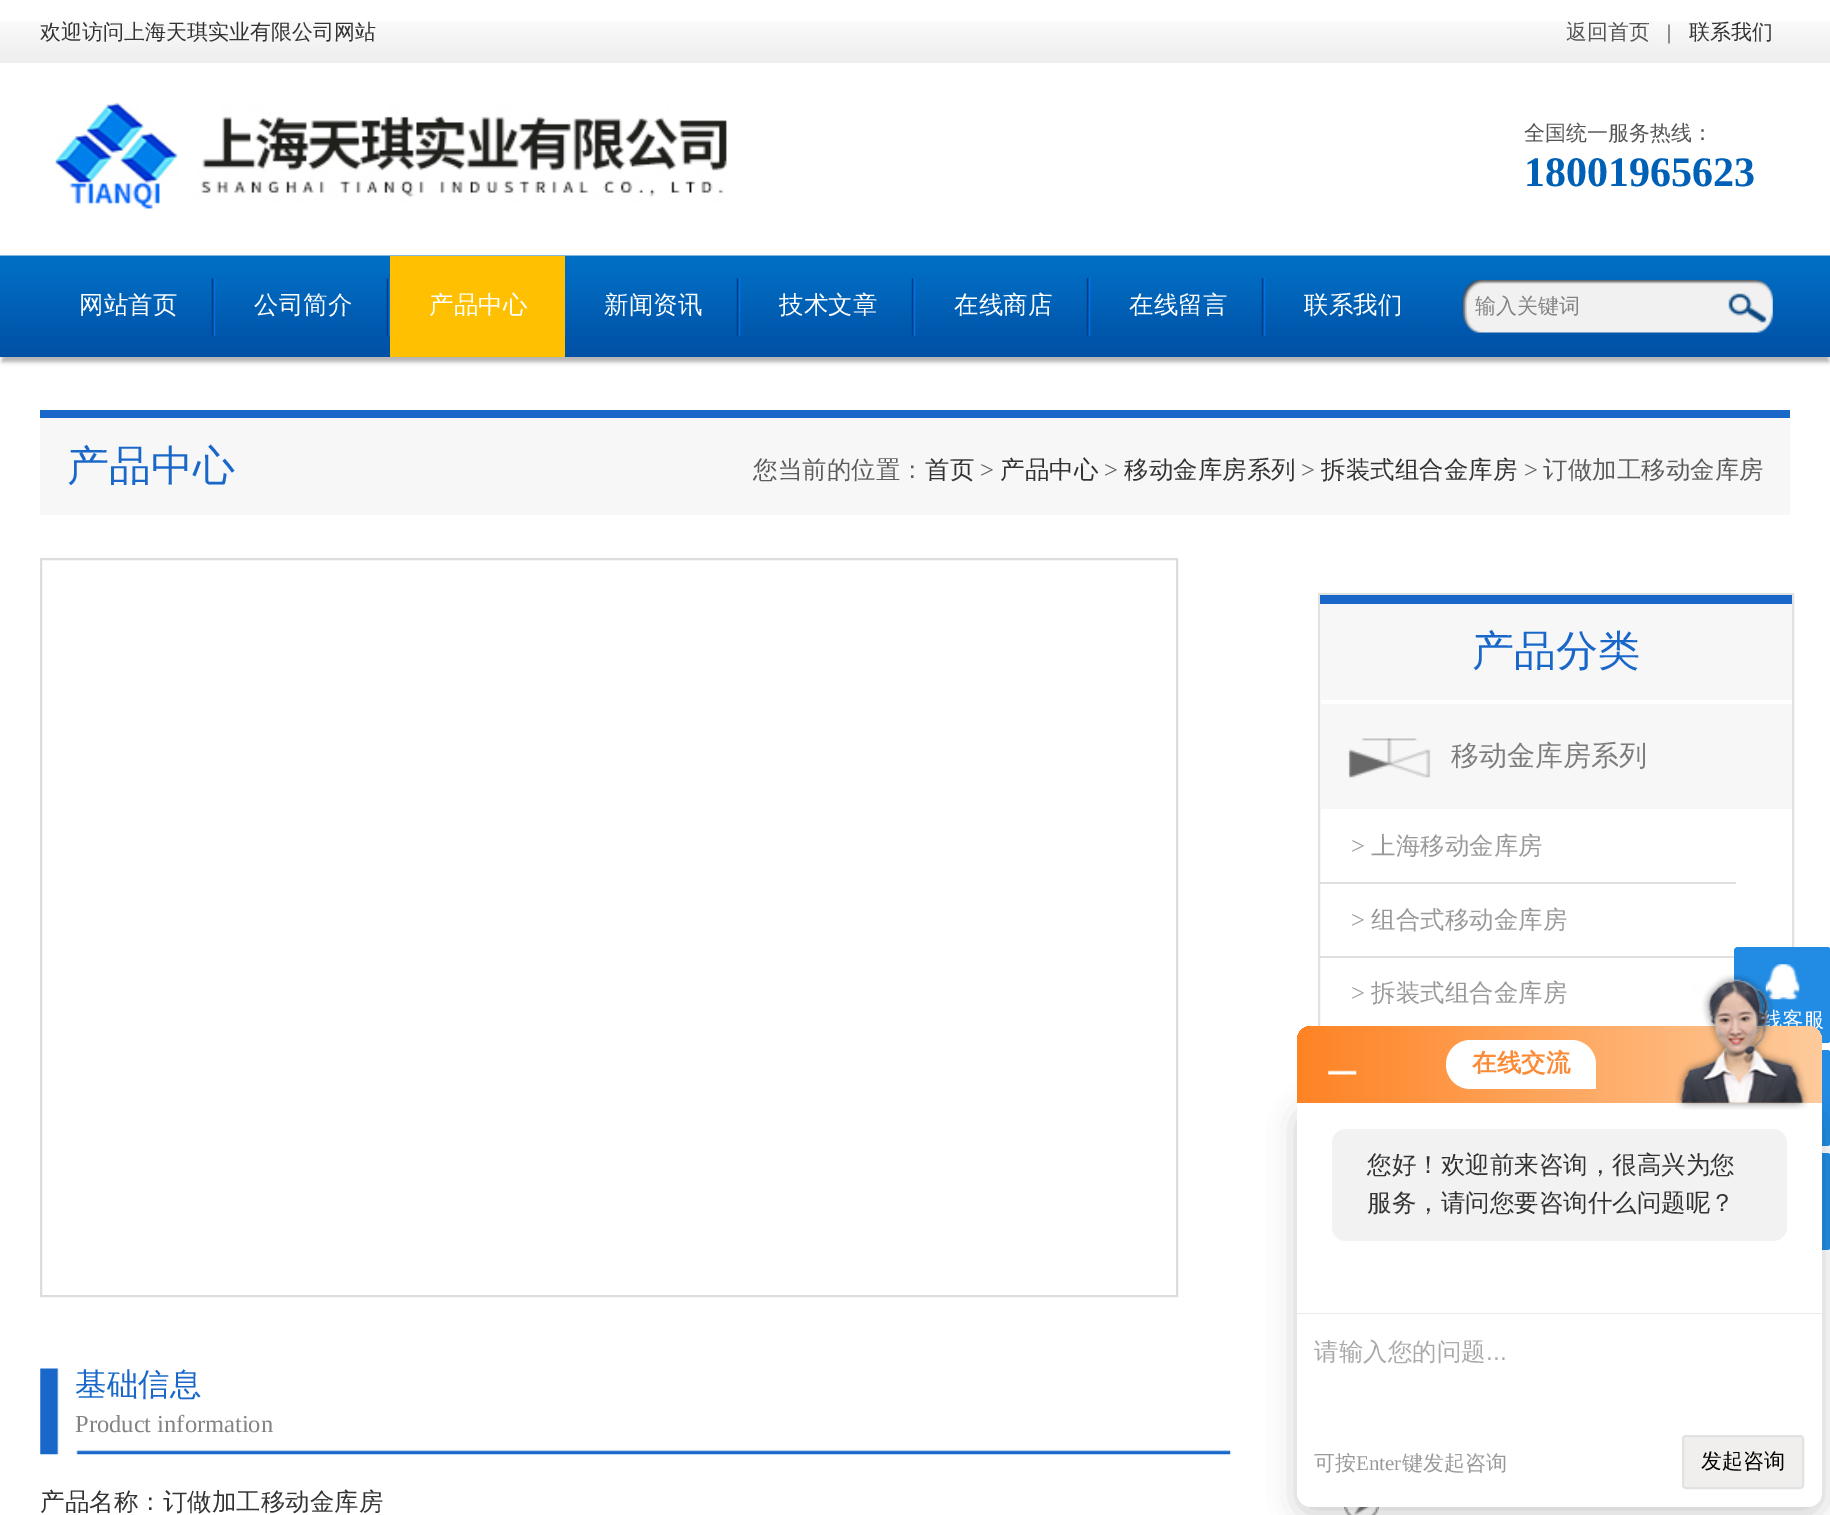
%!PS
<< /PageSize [1830 1515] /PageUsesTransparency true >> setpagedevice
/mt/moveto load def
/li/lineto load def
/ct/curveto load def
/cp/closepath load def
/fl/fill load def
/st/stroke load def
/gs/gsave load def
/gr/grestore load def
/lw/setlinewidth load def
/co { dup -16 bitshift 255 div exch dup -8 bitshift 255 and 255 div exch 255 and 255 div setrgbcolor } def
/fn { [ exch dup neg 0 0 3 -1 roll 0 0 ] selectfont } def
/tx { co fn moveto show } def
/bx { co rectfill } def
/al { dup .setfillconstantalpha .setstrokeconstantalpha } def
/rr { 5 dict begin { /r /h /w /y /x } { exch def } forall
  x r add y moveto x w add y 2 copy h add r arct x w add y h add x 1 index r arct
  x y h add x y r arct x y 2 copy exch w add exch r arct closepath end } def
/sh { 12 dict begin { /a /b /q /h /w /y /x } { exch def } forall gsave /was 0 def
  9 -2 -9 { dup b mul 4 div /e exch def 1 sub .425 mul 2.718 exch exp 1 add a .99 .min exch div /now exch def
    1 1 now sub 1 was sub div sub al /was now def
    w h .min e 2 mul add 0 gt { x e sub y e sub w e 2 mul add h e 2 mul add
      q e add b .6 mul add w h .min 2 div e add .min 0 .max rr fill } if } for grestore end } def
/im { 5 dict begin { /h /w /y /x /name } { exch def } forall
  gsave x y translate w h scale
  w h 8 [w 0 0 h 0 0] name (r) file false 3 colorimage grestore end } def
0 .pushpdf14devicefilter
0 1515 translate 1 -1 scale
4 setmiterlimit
0 0 1830 1515 16#FFFFFF bx
(media/1.raw) 0 21 1830 42 im
(media/2.raw) 55 102 672 107 im
16#000000 co
2 264 1827 98 0 2 .3 sh
(media/3.raw) 0 255 1830 102 im
(media/4.raw) 211 278 5 58 im
(media/5.raw) 386 278 4 58 im
(media/6.raw) 565 278 1 58 im
390 256 175 101 16#FFC001 bx
(media/7.raw) 736 278 5 58 im
(media/7.raw) 911 278 5 58 im
(media/8.raw) 1086 278 5 58 im
(media/7.raw) 1261 278 5 58 im
(media/9.raw) 1463 280 310 53 im
(media/10.raw) 1728 293 39 30 im
40 418 1750 97 16#F7F7F7 bx
40 410 1750 8 16#1967C9 bx
16#E1E1E1 co
2 lw
1319 594 474 544 rectstroke
1320 604 472 96 16#F7F7F7 bx
1320 595 472 9 16#1967C9 bx
1320 704 472 105 16#F7F7F7 bx
(media/11.raw) 1348 738 83 40 im
1320 882 416 2 16#E0DEDE bx
1320 956 416 2 16#E0DEDE bx
(media/12.raw) 1344 1507 35 8 im
16#DDDDDD co
41 559 1136 737 rectstroke
(media/13.raw) 40 1368 1191 87 im
16#228CE4 co
1734 947 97 96 4 rr fl
(media/14.raw) 1765 964 35 36 im
1734 1050 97 96 4 rr fl
1734 1153 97 97 4 rr fl
16#000000 co
1297 1110 525 404 14 14 .2 sh
16#FFFFFF co
1297 1103 mt 1822 1103 li 1822 1493 li 1822 1500.5 1815.5 1507 1808 1507 ct 1311 1507 li 1303.5 1507 1297 1500.5 1297 1493 ct cp fl
16#F2F2F2 co
1332 1129 455 112 14 rr fl
1297 1313 525 1 16#EAEAEA bx
16#F0EFED co
1683 1436 120 52 3 rr gs fl gr
16#E2E2E2 co
st
(欢迎访问上海天琪实业有限公司网站) 40 39 /WenQuanYiZenHei-Medium 21 16#333333 tx
(返回首页) 1566 39 /WenQuanYiZenHei-Medium 21 16#555555 tx
(|) 1667 39 /LiberationSerif-Regular 21 16#333333 tx
(联系我们) 1689 39 /WenQuanYiZenHei-Medium 21 16#333333 tx
(全国统一服务热线：) 1524 140 /WenQuanYiZenHei-Medium 21 16#555555 tx
(18001965623) 1524 186 /LiberationSerif-Bold 42 16#0060B5 tx
(网站首页) 79 313 /WenQuanYiZenHei-Medium 24.5 16#FFFFFF tx
(公司简介) 254 313 /WenQuanYiZenHei-Medium 24.5 16#FFFFFF tx
(产品中心) 429 313 /WenQuanYiZenHei-Medium 24.5 16#FFFFFF tx
(新闻资讯) 604 313 /WenQuanYiZenHei-Medium 24.5 16#FFFFFF tx
(技术文章) 779 313 /WenQuanYiZenHei-Medium 24.5 16#FFFFFF tx
(在线商店) 954 313 /WenQuanYiZenHei-Medium 24.5 16#FFFFFF tx
(在线留言) 1129 313 /WenQuanYiZenHei-Medium 24.5 16#FFFFFF tx
(联系我们) 1304 313 /WenQuanYiZenHei-Medium 24.5 16#FFFFFF tx
(输入关键词) 1475 313 /WenQuanYiZenHei-Medium 21 16#828383 tx
(产品中心) 67 480 /WenQuanYiZenHei-Medium 42 16#1967C9 tx
(您当前的位置：) 753 478 /WenQuanYiZenHei-Medium 24.5 16#5C5C5C tx
(首页) 925 478 /WenQuanYiZenHei-Medium 24.5 16#333333 tx
(>) 980 478 /LiberationSerif-Regular 24.5 16#5C5C5C tx
(产品中心) 1000 478 /WenQuanYiZenHei-Medium 24.5 16#333333 tx
(>) 1104 478 /LiberationSerif-Regular 24.5 16#5C5C5C tx
(移动金库房系列) 1124 478 /WenQuanYiZenHei-Medium 24.5 16#333333 tx
(>) 1301 478 /LiberationSerif-Regular 24.5 16#5C5C5C tx
(拆装式组合金库房) 1321 478 /WenQuanYiZenHei-Medium 24.5 16#333333 tx
(>) 1524 478 /LiberationSerif-Regular 24.5 16#5C5C5C tx
(订做加工移动金库房) 1543 478 /WenQuanYiZenHei-Medium 24.5 16#5C5C5C tx
(产品分类) 1472 665 /WenQuanYiZenHei-Medium 42 16#1967C9 tx
(移动金库房系列) 1451 765 /WenQuanYiZenHei-Medium 28 16#7D7D7D tx
(>) 1351 854 /LiberationSerif-Regular 24.5 16#999999 tx
(上海移动金库房) 1371 854 /WenQuanYiZenHei-Medium 24.5 16#999999 tx
(>) 1351 928 /LiberationSerif-Regular 24.5 16#999999 tx
(组合式移动金库房) 1371 928 /WenQuanYiZenHei-Medium 24.5 16#999999 tx
(>) 1351 1001 /LiberationSerif-Regular 24.5 16#999999 tx
(拆装式组合金库房) 1371 1001 /WenQuanYiZenHei-Medium 24.5 16#999999 tx
(基础信息) 75 1395 /WenQuanYiZenHei-Medium 31.5 16#1967C9 tx
(Product information) 75 1432 /LiberationSerif-Regular 24.5 16#828383 tx
(产品名称：订做加工移动金库房) 40 1510 /WenQuanYiZenHei-Medium 24.5 16#333333 tx
(线客服) 1761 1027 /WenQuanYiZenHei-Medium 21 16#FFFFFF tx
gs 1311 1026 mt 1808 1026 li 1815.5 1026 1822 1032.5 1822 1040 ct 1822 1103 li 1297 1103 li 1297 1040 li 1297 1032.5 1303.5 1026 1311 1026 ct cp clip newpath
<< /ShadingType 2 /ColorSpace /DeviceRGB /Coords [1297 1064 1822 1064] /Extend [true true] /Function << /FunctionType 2 /Domain [0 1] /C0 [1 .514 .141] /C1 [.996 .796 .612] /N 1 >> >> shfill gr
(media/15.raw) 1328 1070 29 5 im
1470.5 1040 mt 1571.5 1040 li 1585 1040 1596 1051 1596 1064.5 ct 1596 1089 li 1470.5 1089 li 1457 1089 1446 1078 1446 1064.5 ct 1446 1051 1457 1040 1470.5 1040 ct cp fl
(在线交流) 1472 1071 /WenQuanYiZenHei-Bold 24.5 16#FB8B36 tx
(media/16.raw) 1675 974 134 136 im
(您好！欢迎前来咨询，很高兴为您) 1367 1173 /WenQuanYiZenHei-Medium 24.5 16#333333 tx
(服务，请问您要咨询什么问题呢？) 1367 1211 /WenQuanYiZenHei-Medium 24.5 16#333333 tx
(请输入您的问题) 1314 1360 /WenQuanYiZenHei-Medium 24.5 16#AAAAAA tx
(...) 1486 1360 /LiberationSans-Regular 24.5 16#AAAAAA tx
(可按) 1314 1470 /WenQuanYiZenHei-Medium 21 16#999999 tx
(Enter) 1356 1470 /LiberationSerif-Regular 21 16#999999 tx
(键发起咨询) 1402 1470 /WenQuanYiZenHei-Medium 21 16#999999 tx
(发起咨询) 1701 1468 /WenQuanYiZenHei-Medium 21 16#000000 tx
.poppdf14devicefilter showpage
